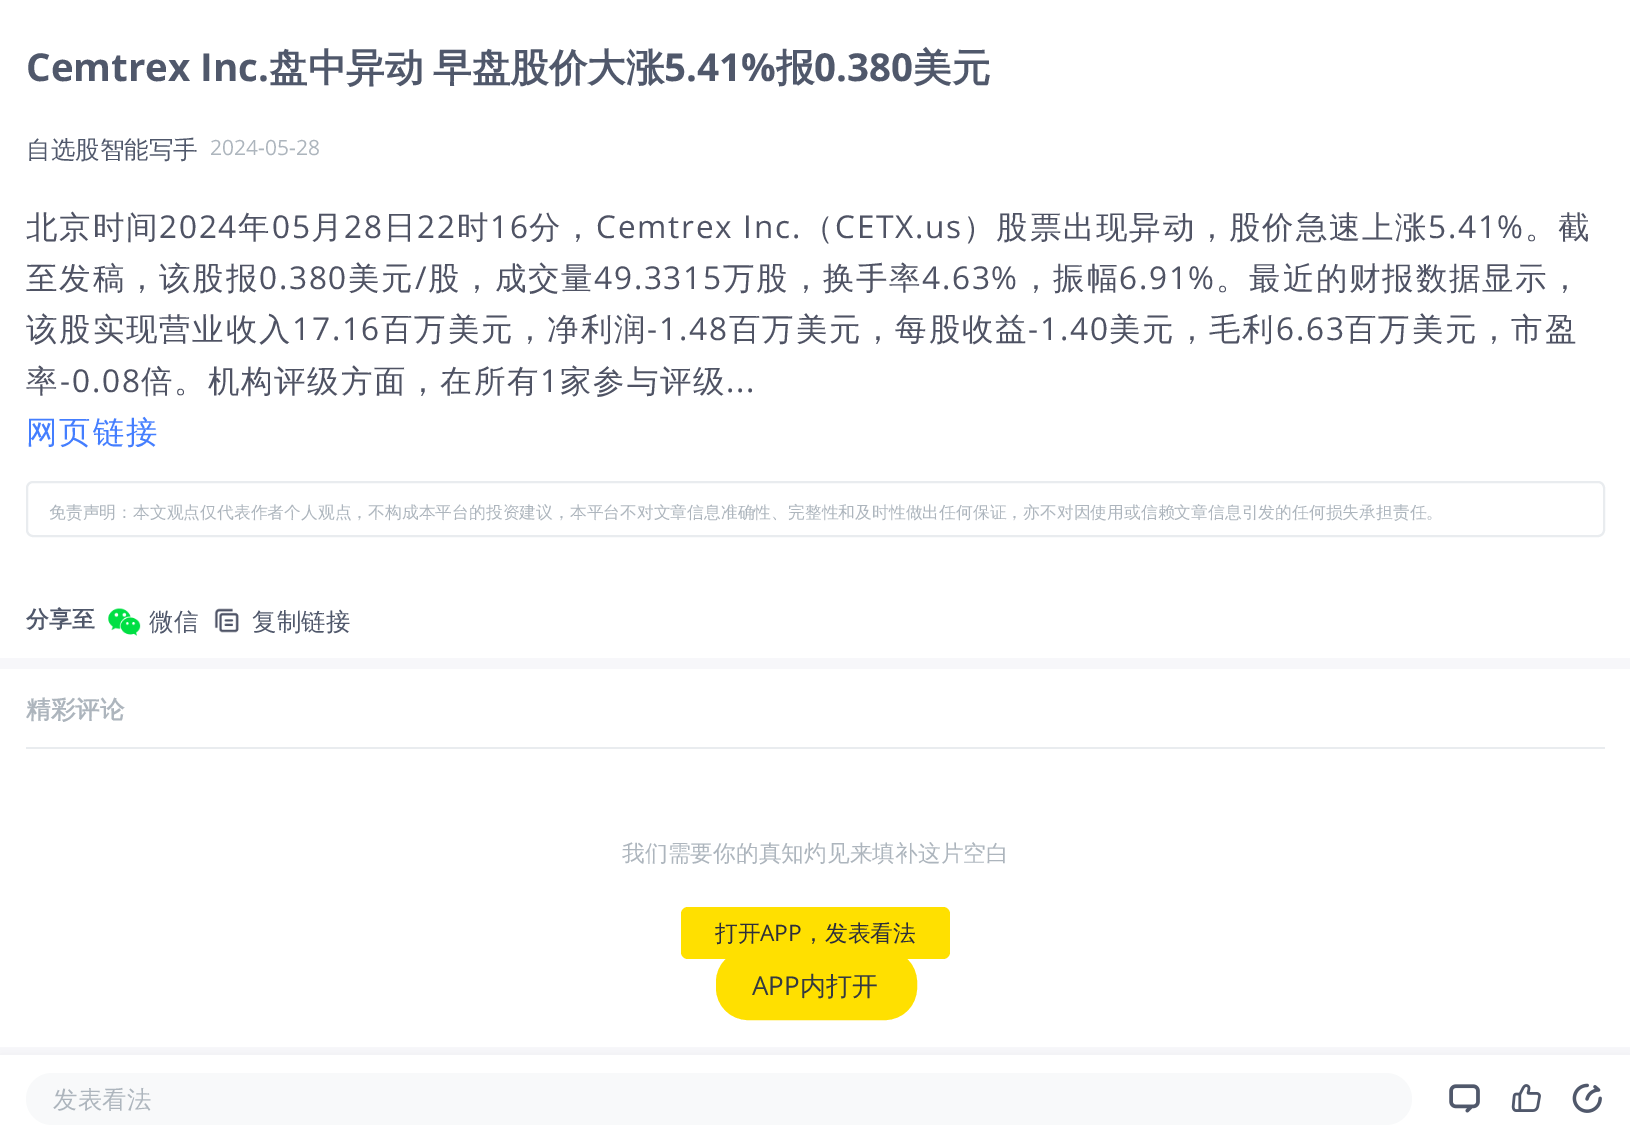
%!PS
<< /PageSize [1630 1142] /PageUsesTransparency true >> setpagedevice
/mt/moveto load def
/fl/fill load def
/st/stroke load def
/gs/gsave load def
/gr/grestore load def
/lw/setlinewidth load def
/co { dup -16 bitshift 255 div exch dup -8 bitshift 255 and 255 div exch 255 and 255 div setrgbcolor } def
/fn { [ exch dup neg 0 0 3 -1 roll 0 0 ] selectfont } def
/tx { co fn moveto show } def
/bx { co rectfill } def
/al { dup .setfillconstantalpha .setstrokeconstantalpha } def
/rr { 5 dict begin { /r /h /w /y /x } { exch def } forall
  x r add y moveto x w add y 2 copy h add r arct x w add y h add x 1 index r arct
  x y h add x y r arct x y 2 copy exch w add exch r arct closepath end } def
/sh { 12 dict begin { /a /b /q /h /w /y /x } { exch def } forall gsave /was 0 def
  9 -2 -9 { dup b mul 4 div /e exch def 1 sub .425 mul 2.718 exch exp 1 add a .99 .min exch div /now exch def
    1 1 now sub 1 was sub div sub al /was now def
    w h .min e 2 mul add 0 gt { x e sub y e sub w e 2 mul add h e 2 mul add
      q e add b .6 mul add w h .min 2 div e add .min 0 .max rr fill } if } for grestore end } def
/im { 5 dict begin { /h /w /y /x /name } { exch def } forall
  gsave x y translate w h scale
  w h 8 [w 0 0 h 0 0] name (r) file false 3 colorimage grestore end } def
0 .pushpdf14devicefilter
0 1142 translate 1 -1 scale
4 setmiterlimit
0 0 1630 1142 16#F7F7FA bx
0 0 1630 658 16#FFFFFF bx
16#E9ECEF co
2 lw
27 482 1577 54 6 rr st
(media/1.raw) 108 608 33 28 im
(media/2.raw) 214 608 25 25 im
0 669 1630 378 16#FFFFFF bx
26 747 1579 2 16#E9ECEF bx
16#FFE000 co
681 907 269 52 7 rr fl
717 951 199 68 31 rr gs fl gr
st
16#000000 co
0 1054 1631 87 0 5 .04 sh
0 1055 1630 87 16#FFFFFF bx
16#F8F9FA co
26 1073 1386 52 26 rr fl
(media/3.raw) 1449 1084 31 29 im
(media/4.raw) 1511 1084 30 28 im
(media/5.raw) 1572 1083 30 30 im
(Cemtrex Inc.) 26 81 /OpenSans-Bold 38.5 16#50586B tx
(盘中异动) 269 81 /WenQuanYiZenHei-Bold 38.5 16#50586B tx
(早盘股价大涨) 433 81 /WenQuanYiZenHei-Bold 38.5 16#50586B tx
(5.41%) 664 81 /OpenSans-Bold 38.5 16#50586B tx
(报) 776 81 /WenQuanYiZenHei-Bold 38.5 16#50586B tx
(0.380) 814 81 /OpenSans-Bold 38.5 16#50586B tx
(美元) 913 81 /WenQuanYiZenHei-Bold 38.5 16#50586B tx
(自选股智能写手) 26 158 /WenQuanYiZenHei-Medium 24.5 16#50586B tx
(2024-05-28) 210 155 /OpenSans-Regular 21 16#ADB5BD tx
/WenQuanYiZenHei-Medium 31.5 fn
16#4F5364 co
26 238 mt 1.75 0 (北京时间) ashow
/OpenSans-Regular 31.5 fn
159 238 mt 1.75 0 (2024) ashow
/WenQuanYiZenHei-Medium 31.5 fn
238 238 mt 1.75 0 (年) ashow
/OpenSans-Regular 31.5 fn
272 238 mt 1.75 0 (05) ashow
/WenQuanYiZenHei-Medium 31.5 fn
311 238 mt 1.75 0 (月) ashow
/OpenSans-Regular 31.5 fn
344 238 mt 1.75 0 (28) ashow
/WenQuanYiZenHei-Medium 31.5 fn
384 238 mt 1.75 0 (日) ashow
/OpenSans-Regular 31.5 fn
417 238 mt 1.75 0 (22) ashow
/WenQuanYiZenHei-Medium 31.5 fn
457 238 mt 1.75 0 (时) ashow
/OpenSans-Regular 31.5 fn
490 238 mt 1.75 0 (16) ashow
/WenQuanYiZenHei-Medium 31.5 fn
529 238 mt 1.75 0 (分，) ashow
/OpenSans-Regular 31.5 fn
596 238 mt 1.75 0 (Cemtrex Inc.) ashow
/WenQuanYiZenHei-Medium 31.5 fn
802 238 mt 1.75 0 (（) ashow
/OpenSans-Regular 31.5 fn
835 238 mt 1.75 0 (CETX.us) ashow
/WenQuanYiZenHei-Medium 31.5 fn
963 238 mt 1.75 0 (）股票出现异动，股价急速上涨) ashow
/OpenSans-Regular 31.5 fn
1428 238 mt 1.75 0 (5.41%) ashow
/WenQuanYiZenHei-Medium 31.5 fn
1525 238 mt 1.75 0 (。截) ashow
26 289 mt 1.75 0 (至发稿，该股报) ashow
/OpenSans-Regular 31.5 fn
259 289 mt 1.75 0 (0.380) ashow
/WenQuanYiZenHei-Medium 31.5 fn
348 289 mt 1.75 0 (美元) ashow
/OpenSans-Regular 31.5 fn
415 289 mt 1.75 0 (/) ashow
/WenQuanYiZenHei-Medium 31.5 fn
428 289 mt 1.75 0 (股，成交量) ashow
/OpenSans-Regular 31.5 fn
594 289 mt 1.75 0 (49.3315) ashow
/WenQuanYiZenHei-Medium 31.5 fn
723 289 mt 1.75 0 (万股，换手率) ashow
/OpenSans-Regular 31.5 fn
922 289 mt 1.75 0 (4.63%) ashow
/WenQuanYiZenHei-Medium 31.5 fn
1020 289 mt 1.75 0 (，振幅) ashow
/OpenSans-Regular 31.5 fn
1119 289 mt 1.75 0 (6.91%) ashow
/WenQuanYiZenHei-Medium 31.5 fn
1216 289 mt 1.75 0 (。最近的财报数据显示，) ashow
26 340 mt 1.75 0 (该股实现营业收入) ashow
/OpenSans-Regular 31.5 fn
292 340 mt 1.75 0 (17.16) ashow
/WenQuanYiZenHei-Medium 31.5 fn
381 340 mt 1.75 0 (百万美元，净利润) ashow
/OpenSans-Regular 31.5 fn
647 340 mt 1.75 0 (-1.48) ashow
/WenQuanYiZenHei-Medium 31.5 fn
729 340 mt 1.75 0 (百万美元，每股收益) ashow
/OpenSans-Regular 31.5 fn
1028 340 mt 1.75 0 (-1.40) ashow
/WenQuanYiZenHei-Medium 31.5 fn
1109 340 mt 1.75 0 (美元，毛利) ashow
/OpenSans-Regular 31.5 fn
1276 340 mt 1.75 0 (6.63) ashow
/WenQuanYiZenHei-Medium 31.5 fn
1345 340 mt 1.75 0 (百万美元，市盈) ashow
26 392 mt 1.75 0 (率) ashow
/OpenSans-Regular 31.5 fn
60 392 mt 1.75 0 (-0.08) ashow
/WenQuanYiZenHei-Medium 31.5 fn
141 392 mt 1.75 0 (倍。机构评级方面，在所有) ashow
/OpenSans-Regular 31.5 fn
540 392 mt 1.75 0 (1) ashow
/WenQuanYiZenHei-Medium 31.5 fn
560 392 mt 1.75 0 (家参与评级) ashow
/OpenSans-Regular 31.5 fn
726 392 mt 1.75 0 (...) ashow
/WenQuanYiZenHei-Medium 31.5 fn
16#447EFF co
26 443 mt 1.75 0 (网页链接) ashow
(免责声明：本文观点仅代表作者个人观点，不构成本平台的投资建议，本平台不对文章信息准确性、完整性和及时性做出任何保证，亦不对因使用或信赖文章信息引发的任何损失承担责任。) 49 518 /WenQuanYiZenHei-Medium 16.8 16#ADB5BD tx
(分享至) 26 627 /WenQuanYiZenHei-Bold 22.75 16#50586B tx
(微信) 149 630 /WenQuanYiZenHei-Medium 24.5 16#50586B tx
(复制链接) 252 630 /WenQuanYiZenHei-Medium 24.5 16#50586B tx
(精彩评论) 26 718 /WenQuanYiZenHei-Bold 24.5 16#ADB5BD tx
(我们需要你的真知灼见来填补这片空白) 622 861 /WenQuanYiZenHei-Medium 22.75 16#ADB5BD tx
(打开) 715 941 /WenQuanYiZenHei-Medium 22.75 16#2C2E3B tx
(APP) 760 941 /OpenSans-Regular 22.75 16#2C2E3B tx
(，发表看法) 802 941 /WenQuanYiZenHei-Medium 22.75 16#2C2E3B tx
(APP) 752 995 /OpenSans-Regular 26 16#343A40 tx
(内打开) 800 995 /WenQuanYiZenHei-Medium 26 16#343A40 tx
(发表看法) 53 1108 /WenQuanYiZenHei-Medium 24.5 16#ADB5BD tx
.poppdf14devicefilter showpage
